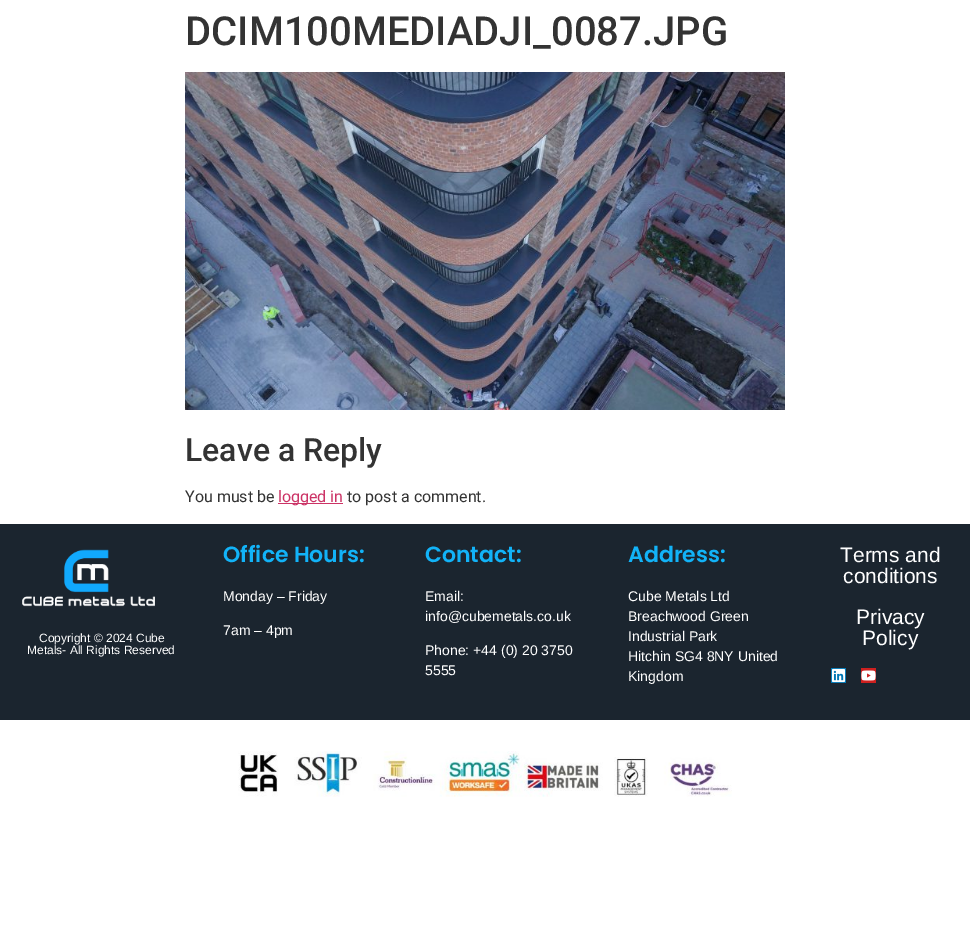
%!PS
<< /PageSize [970 943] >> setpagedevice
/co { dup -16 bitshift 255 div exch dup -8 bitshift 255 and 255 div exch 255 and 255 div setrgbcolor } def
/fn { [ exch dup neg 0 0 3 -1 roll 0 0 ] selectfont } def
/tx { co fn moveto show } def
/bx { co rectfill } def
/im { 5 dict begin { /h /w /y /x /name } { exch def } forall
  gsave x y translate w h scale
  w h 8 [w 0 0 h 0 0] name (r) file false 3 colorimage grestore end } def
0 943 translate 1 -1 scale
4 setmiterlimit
0 0 970 943 16#FFFFFF bx
(media/1.raw) 185 72 600 338 im
278 503 65 1 16#CC3366 bx
0 524 970 196 16#1B252F bx
(media/2.raw) 22 549 133 58 im
831 668 15 15 16#0077B5 bx
(media/3.raw) 831 668 15 15 im
861 668 15 15 16#CD201F bx
(media/4.raw) 861 670 15 11 im
(media/5.raw) 238 751 494 46 im
(DCIM100MEDIADJI_0087.JPG) 185 45 /Roboto-Medium 40 16#333333 tx
(Leave a Reply) 185 461 /Roboto-Medium 32 16#333333 tx
(You must be) 185 502 /Roboto-Regular 16 16#333333 tx
(logged in) 278 502 /Roboto-Regular 16 16#CC3366 tx
(to post a comment.) 347 502 /Roboto-Regular 16 16#333333 tx
(Copyright © 2024 Cube) 39 642 /LiberationSans-Regular 12 16#FFFFFF tx
(Metals- All Rights Reserved) 27 654 /LiberationSans-Regular 12 16#FFFFFF tx
(Office Hours:) 223 562 /Poppins-SemiBold 22 16#12B3F8 tx
(Monday – Friday) 223 601 /LiberationSans-Regular 14 16#FFFFFF tx
(7am – 4pm) 223 635 /LiberationSans-Regular 14 16#FFFFFF tx
(Contact:) 425 562 /Poppins-SemiBold 22 16#12B3F8 tx
(Email:) 425 601 /LiberationSans-Regular 14 16#FFFFFF tx
(info@cubemetals.co.uk) 425 621 /LiberationSans-Regular 14 16#FFFFFF tx
(Phone: +44 \(0\) 20 3750) 425 655 /LiberationSans-Regular 14 16#FFFFFF tx
(5555) 425 675 /LiberationSans-Regular 14 16#FFFFFF tx
(Address:) 628 562 /Poppins-SemiBold 22 16#12B3F8 tx
(Cube Metals Ltd) 628 601 /LiberationSans-Regular 14 16#FFFFFF tx
(Breachwood Green) 628 621 /LiberationSans-Regular 14 16#FFFFFF tx
(Industrial Park) 628 641 /LiberationSans-Regular 14 16#FFFFFF tx
(Hitchin SG4 8NY United) 628 661 /LiberationSans-Regular 14 16#FFFFFF tx
(Kingdom) 628 681 /LiberationSans-Regular 14 16#FFFFFF tx
(Terms and) 840 562 /LiberationSans-Regular 21 16#FFFFFF tx
(conditions) 843 583 /LiberationSans-Regular 21 16#FFFFFF tx
(Privacy) 856 624 /LiberationSans-Regular 21 16#FFFFFF tx
(Policy) 862 645 /LiberationSans-Regular 21 16#FFFFFF tx
showpage
